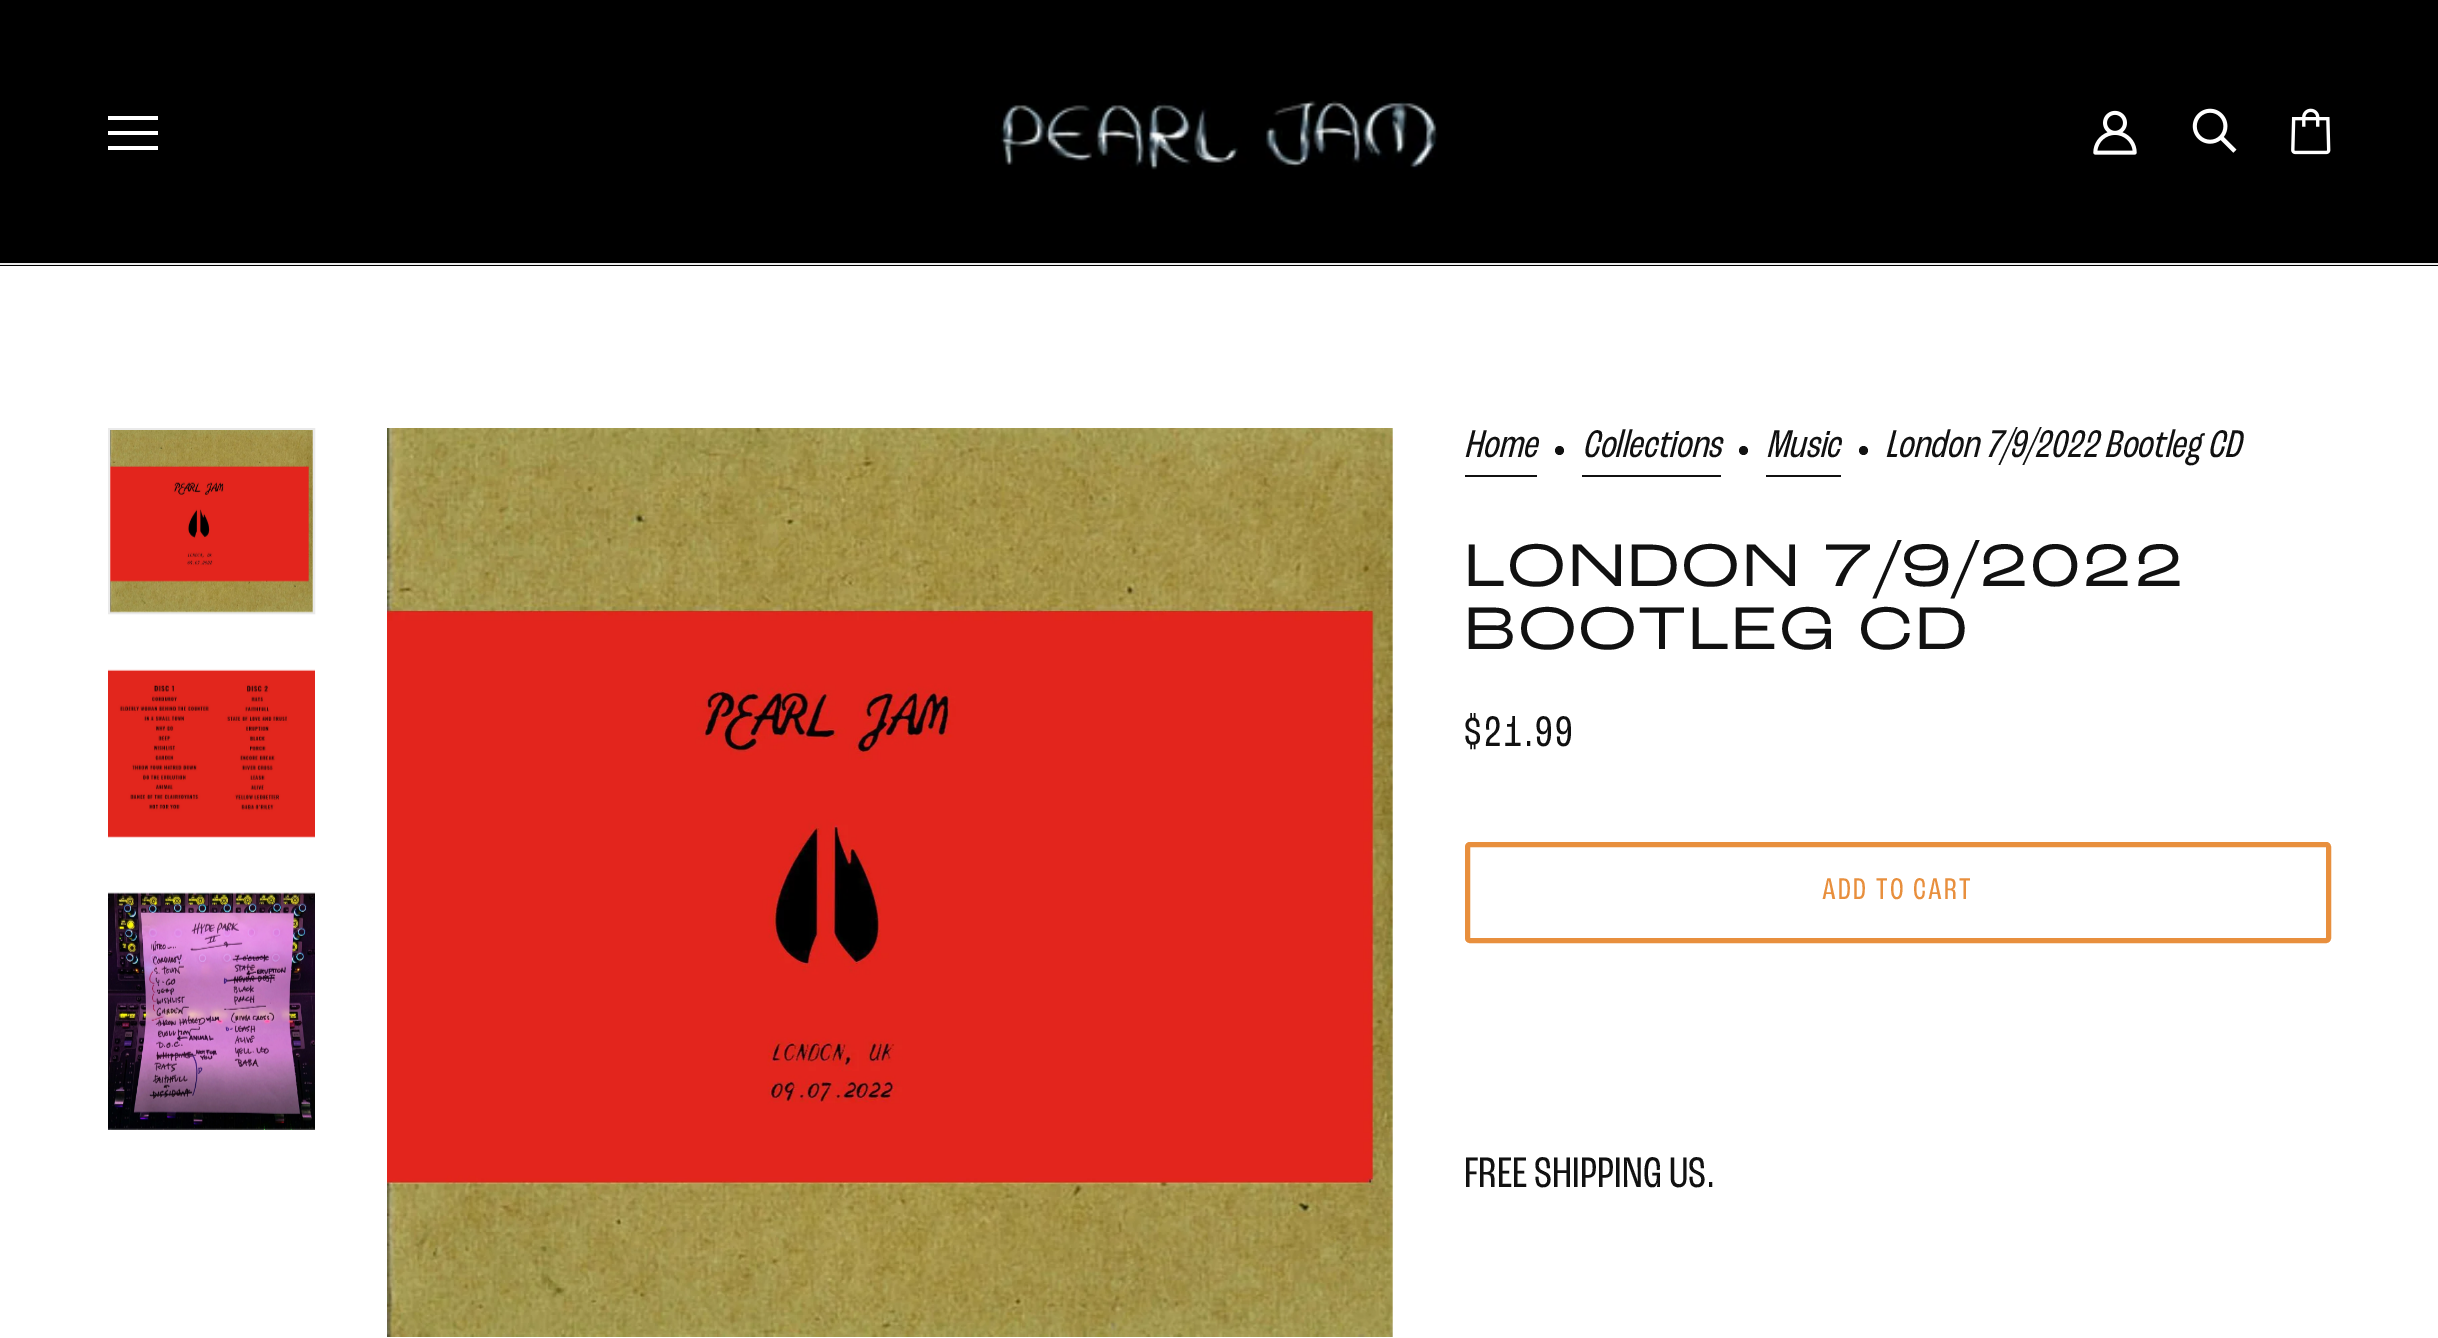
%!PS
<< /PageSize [2438 1338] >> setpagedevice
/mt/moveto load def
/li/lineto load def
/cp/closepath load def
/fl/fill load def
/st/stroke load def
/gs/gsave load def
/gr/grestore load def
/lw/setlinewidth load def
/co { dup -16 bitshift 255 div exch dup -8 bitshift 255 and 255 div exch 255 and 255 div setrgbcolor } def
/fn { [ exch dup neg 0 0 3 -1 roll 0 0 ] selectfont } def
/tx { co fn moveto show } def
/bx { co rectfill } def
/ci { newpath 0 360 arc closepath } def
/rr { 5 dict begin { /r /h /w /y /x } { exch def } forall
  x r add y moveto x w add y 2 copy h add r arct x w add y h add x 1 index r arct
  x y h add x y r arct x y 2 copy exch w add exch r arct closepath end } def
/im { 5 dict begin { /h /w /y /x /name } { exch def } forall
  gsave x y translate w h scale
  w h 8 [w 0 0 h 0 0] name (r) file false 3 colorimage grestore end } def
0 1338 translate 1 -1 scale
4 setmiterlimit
0 0 2438 1338 16#FFFFFF bx
0 0 2438 266 16#000000 bx
0 263 2438 2 16#EAEAEA bx
16#FFFFFF co
108 120 mt 108 116 li 158 116 li 158 120 li cp 108 135 mt 108 131 li 158 131 li 158 135 li cp 108 150 mt 108 146 li 158 146 li 158 150 li cp fl
(media/1.raw) 995 100 443 70 im
(media/2.raw) 2093 110 44 45 im
(media/3.raw) 2192 108 45 45 im
(media/4.raw) 2291 108 40 47 im
16#EAEAEA co
2 lw
109 429 205 184 rectstroke
(media/5.raw) 110 430 203 183 im
(media/6.raw) 108 669 207 169 im
(media/7.raw) 108 892 207 238 im
(media/8.raw) 387 428 1006 909 im
1465 475 72 2 16#111111 bx
1559.5 450.5 4.5 ci fl
1582 475 139 2 16#111111 bx
1743.5 450.5 4.5 ci fl
1766 475 75 2 16#111111 bx
1863.5 450.5 4.5 ci fl
16#E88F3D co
5 lw
1467.5 844.5 861 96 2.5 rr st
(Home) 1464 457 /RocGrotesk-Italic 40.5 16#111111 tx
(Collections) 1582 457 /RocGrotesk-Italic 40.5 16#111111 tx
(Music) 1766 457 /RocGrotesk-Italic 40.5 16#111111 tx
(London 7/9/2022 Bootleg CD) 1885 457 /RocGrotesk-Italic 40.5 16#111111 tx
gs
1465 540 866 126 rectclip
/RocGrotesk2-Regular 63 fn
1464 586 mt 1.6 0 (LONDON 7/9/2022) ashow
gr
/RocGrotesk2-Regular 63 fn
1464 649 mt 1.6 0 (BOOTLEG CD) ashow
/RocGrotesk-Regular 45 fn
1464 746 mt 2.25 0 ($21.99) ashow
/RocGrotesk-Regular 31.5 fn
16#E88F3D co
1822 899 mt 2.25 0 (ADD TO CART) ashow
(FREE SHIPPING US.) 1464 1187 /RocGrotesk-Regular 45 16#111111 tx
showpage
